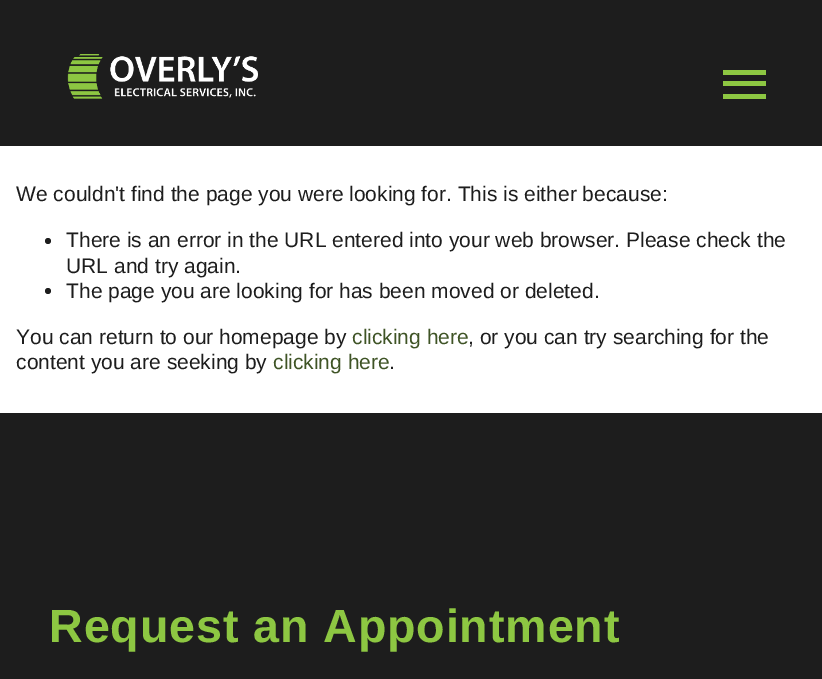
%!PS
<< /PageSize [822 679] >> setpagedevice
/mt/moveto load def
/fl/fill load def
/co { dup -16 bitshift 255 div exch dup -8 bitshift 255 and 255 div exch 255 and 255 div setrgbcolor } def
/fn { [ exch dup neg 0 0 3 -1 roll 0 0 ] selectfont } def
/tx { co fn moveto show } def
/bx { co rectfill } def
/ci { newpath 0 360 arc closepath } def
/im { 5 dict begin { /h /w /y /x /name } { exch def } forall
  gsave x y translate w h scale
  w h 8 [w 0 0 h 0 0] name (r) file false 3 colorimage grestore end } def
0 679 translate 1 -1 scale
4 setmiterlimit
0 0 822 679 16#FFFFFF bx
0 0 822 146 16#1D1D1D bx
(media/1.raw) 67 54 191 45 im
723 70 43 5 16#8DC742 bx
723 81 43 5 16#8DC742 bx
723 94 43 5 16#8DC742 bx
16#1D1D1D co
48 241 3 ci fl
48 291 3 ci fl
0 413 822 266 16#1D1D1D bx
(We couldn't find the page you were looking for. This is either because:) 16 201 /LiberationSans-Regular 21 16#1D1D1D tx
(There is an error in the URL entered into your web browser. Please check the) 66 247 /LiberationSans-Regular 21 16#1D1D1D tx
(URL and try again.) 66 273 /LiberationSans-Regular 21 16#1D1D1D tx
(The page you are looking for has been moved or deleted.) 66 298 /LiberationSans-Regular 21 16#1D1D1D tx
(You can return to our homepage by) 16 344 /LiberationSans-Regular 21 16#1D1D1D tx
(clicking here) 352 344 /LiberationSans-Regular 21 16#3F5426 tx
(, or you can try searching for the) 468 344 /LiberationSans-Regular 21 16#1D1D1D tx
(content you are seeking by) 16 369 /LiberationSans-Regular 21 16#1D1D1D tx
(clicking here) 273 369 /LiberationSans-Regular 21 16#3F5426 tx
(.) 389 369 /LiberationSans-Regular 21 16#1D1D1D tx
/LiberationSans-Bold 46.6 fn
16#8DC742 co
49 642 mt .9 0 (Request an Appointment) ashow
showpage
